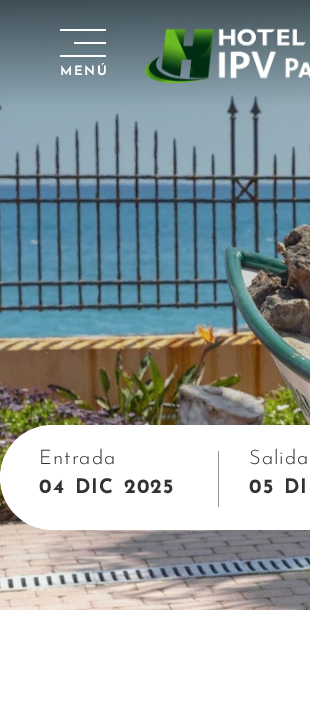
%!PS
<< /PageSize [310 722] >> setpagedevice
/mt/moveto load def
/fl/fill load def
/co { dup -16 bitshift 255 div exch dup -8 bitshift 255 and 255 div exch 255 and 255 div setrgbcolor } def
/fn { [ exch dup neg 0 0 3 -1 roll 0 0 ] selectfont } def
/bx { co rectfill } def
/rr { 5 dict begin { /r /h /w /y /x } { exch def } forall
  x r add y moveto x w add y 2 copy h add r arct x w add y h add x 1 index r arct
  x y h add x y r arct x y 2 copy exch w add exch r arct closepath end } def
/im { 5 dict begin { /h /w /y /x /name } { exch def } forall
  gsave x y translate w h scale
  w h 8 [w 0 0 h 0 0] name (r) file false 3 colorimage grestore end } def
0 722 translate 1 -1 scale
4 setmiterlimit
0 0 310 722 16#FFFFFF bx
(media/2.raw) 0 0 310 610 im
60 29 46 2 16#FFFFFF bx
74 42 32 2 16#FFFFFF bx
60 55 46 2 16#FFFFFF bx
(media/1.raw) 144 28 166 56 im
0 425 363 105 52.5 rr fl
218 451 1 56 16#999999 bx
/JosefinSans-Bold 13 fn
16#FFFFFF co
60 75 mt 1.5 0 (MENÚ) ashow
/JosefinSans-Light 20 fn
16#333333 co
39 464 mt 1 0 (Entrada) ashow
249 464 mt 1 0 (Salida) ashow
/JosefinSans-Bold 20 fn
39 493 mt 1 0 (04) ashow
75 493 mt 1 0 (DIC) ashow
124 493 mt 1 0 (2025) ashow
249 493 mt 1 0 (05) ashow
284 493 mt 1 0 (DI) ashow
showpage
